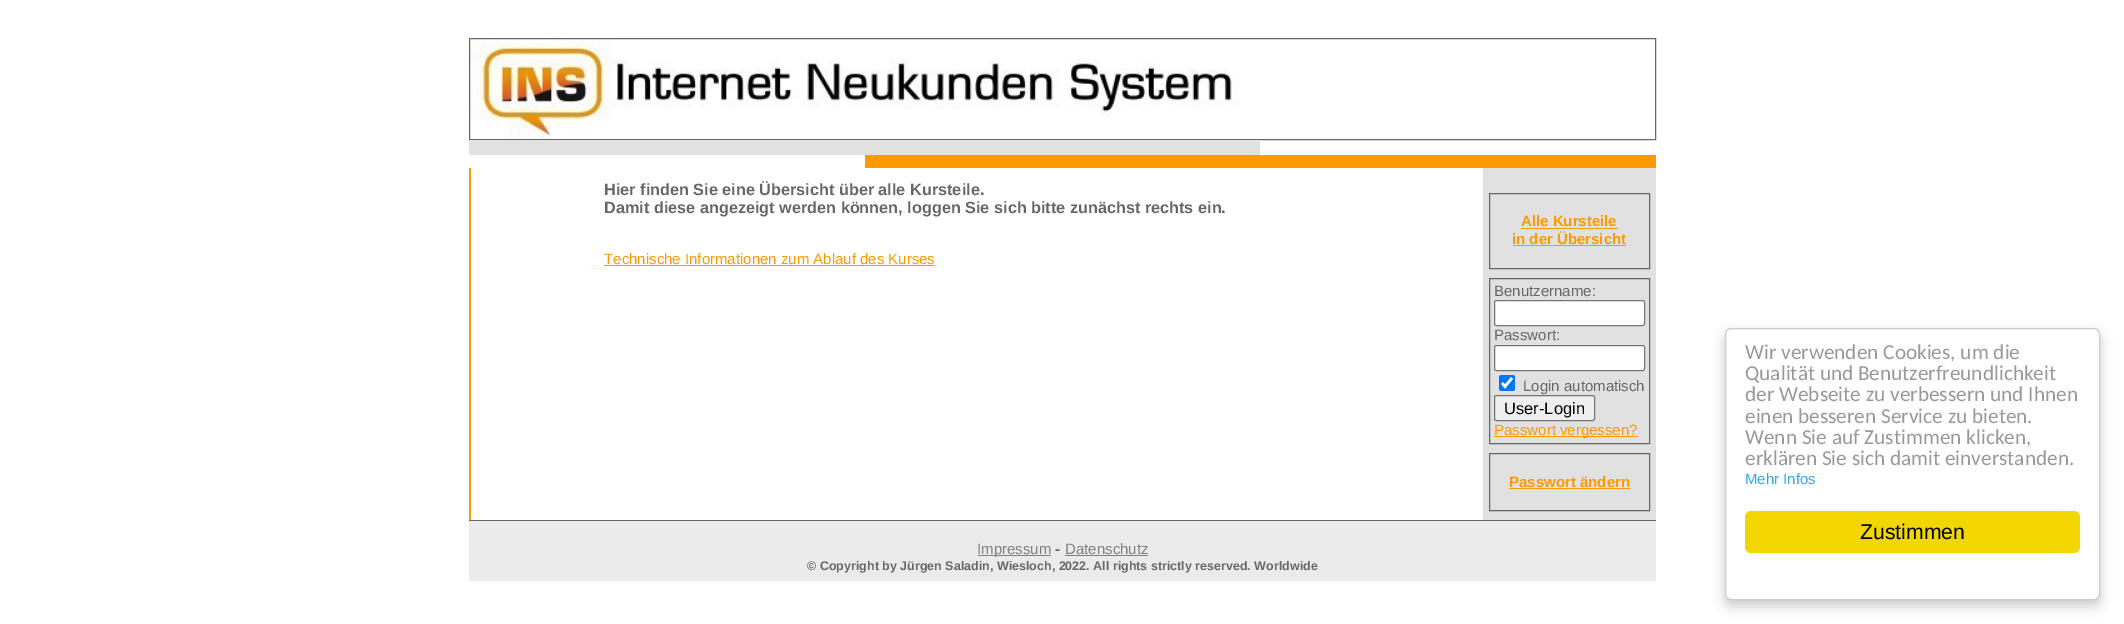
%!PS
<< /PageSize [2124 624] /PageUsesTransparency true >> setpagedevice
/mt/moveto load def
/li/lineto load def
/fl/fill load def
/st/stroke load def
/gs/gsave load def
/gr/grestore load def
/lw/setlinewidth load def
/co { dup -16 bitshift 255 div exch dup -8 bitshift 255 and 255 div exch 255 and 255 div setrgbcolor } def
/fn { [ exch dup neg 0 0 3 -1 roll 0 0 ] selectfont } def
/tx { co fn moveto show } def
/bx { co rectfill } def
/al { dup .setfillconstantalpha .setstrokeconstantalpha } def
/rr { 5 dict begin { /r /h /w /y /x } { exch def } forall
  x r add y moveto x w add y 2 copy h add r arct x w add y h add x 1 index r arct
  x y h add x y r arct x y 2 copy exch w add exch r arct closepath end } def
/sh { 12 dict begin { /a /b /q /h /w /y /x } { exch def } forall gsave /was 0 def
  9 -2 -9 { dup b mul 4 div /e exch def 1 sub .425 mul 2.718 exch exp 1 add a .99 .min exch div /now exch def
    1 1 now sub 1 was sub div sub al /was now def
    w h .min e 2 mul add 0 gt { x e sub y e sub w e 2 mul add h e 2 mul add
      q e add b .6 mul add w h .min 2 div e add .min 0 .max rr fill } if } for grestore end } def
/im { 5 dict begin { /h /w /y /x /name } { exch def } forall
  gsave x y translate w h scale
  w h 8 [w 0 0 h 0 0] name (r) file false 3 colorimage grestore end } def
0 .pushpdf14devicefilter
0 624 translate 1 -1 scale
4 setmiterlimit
0 0 2124 624 16#FFFFFF bx
(media/1.raw) 470 39 770 100 im
16#676767 co
469.5 38.5 1186 101 rectstroke
469 140 791 15 16#E1E1E1 bx
865 155 395 13 16#FF9900 bx
1260 155 396 13 16#FF9900 bx
469 168 2 352 16#FF9900 bx
604 265 331 1 16#FF9900 bx
1483 168 173 352 16#E1E1E1 bx
16#666666 co
1489.5 193.5 160 75 rectstroke
1521 228 97 1 16#FF9900 bx
1513 245 113 1 16#FF9900 bx
16#666666 co
1489.5 278.5 160 165 rectstroke
16#FFFFFF co
1494.5 300.5 150 25 2 rr gs fl gr
16#767676 co
st
16#FFFFFF co
1494.5 345.5 150 25 2 rr gs fl gr
16#767676 co
st
16#0075FF co
1499 375 16 16 2.5 rr fl
16#FFFFFF co
2.6 lw
1502 383 mt 1505 386.5 li 1512 378 li st
16#EFEFEF co
1494.5 395.5 100 25 2 rr gs fl gr
16#767676 co
1 lw
st
1494 436 144 1 16#FF9900 bx
16#666666 co
1489.5 453.5 160 57 rectstroke
1509 488 121 1 16#FF9900 bx
469 520 1187 1 16#676767 bx
469 521 1187 60 16#EBEBEB bx
978 555 73 1 16#808080 bx
1065 555 83 1 16#808080 bx
16#000000 co
1725 334 375 272 6 6 .2 sh
16#FFFFFF co
1725.5 328.5 374 271 5.5 rr gs fl gr
16#CCCCCC co
st
16#F1D600 co
1745 511 335 42 6 rr fl
(Hier finden Sie eine Übersicht über alle Kursteile.) 604 195 /LiberationSans-Bold 16.25 16#676767 tx
(Damit diese angezeigt werden können, loggen Sie sich bitte zunächst rechts ein.) 604 213 /LiberationSans-Bold 16.25 16#676767 tx
(Technische Informationen zum Ablauf des Kurses) 604 264 /LiberationSans-Regular 15 16#FF9900 tx
(Alle Kursteile) 1521 226 /LiberationSans-Bold 15 16#FF9900 tx
(in der Übersicht) 1512 244 /LiberationSans-Bold 15 16#FF9900 tx
(Benutzername:) 1494 296 /LiberationSans-Regular 15 16#676767 tx
(Passwort:) 1494 340 /LiberationSans-Regular 15 16#676767 tx
(Login automatisch) 1523 391 /LiberationSans-Regular 15 16#676767 tx
(User-Login) 1504 414 /LiberationSans-Regular 16.5 16#000000 tx
(Passwort vergessen?) 1494 435 /LiberationSans-Regular 15 16#FF9900 tx
(Passwort ändern) 1509 487 /LiberationSans-Bold 15 16#FF9900 tx
(Impressum) 977 554 /LiberationSans-Regular 15 16#808080 tx
(-) 1055 554 /LiberationSans-Bold 15 16#676767 tx
(Datenschutz) 1065 554 /LiberationSans-Regular 15 16#808080 tx
(© Copyright by Jürgen Saladin, Wiesloch, 2022. All rights strictly reserved. Worldwide) 807 570 /LiberationSans-Bold 12.5 16#676767 tx
(Wir verwenden Cookies, um die) 1745 359 /Carlito-Regular 21.25 16#999999 tx
(Qualität und Benutzerfreundlichkeit) 1745 380 /Carlito-Regular 21.25 16#999999 tx
(der Webseite zu verbessern und Ihnen) 1745 401 /Carlito-Regular 21.25 16#999999 tx
(einen besseren Service zu bieten.) 1745 423 /Carlito-Regular 21.25 16#999999 tx
(Wenn Sie auf Zustimmen klicken,) 1745 444 /Carlito-Regular 21.25 16#999999 tx
(erklären Sie sich damit einverstanden.) 1745 465 /Carlito-Regular 21.25 16#999999 tx
(Mehr Infos) 1745 484 /LiberationSans-Regular 15 16#31A8F0 tx
(Zustimmen) 1860 539 /LiberationSans-Regular 21.25 16#000000 tx
.poppdf14devicefilter showpage
